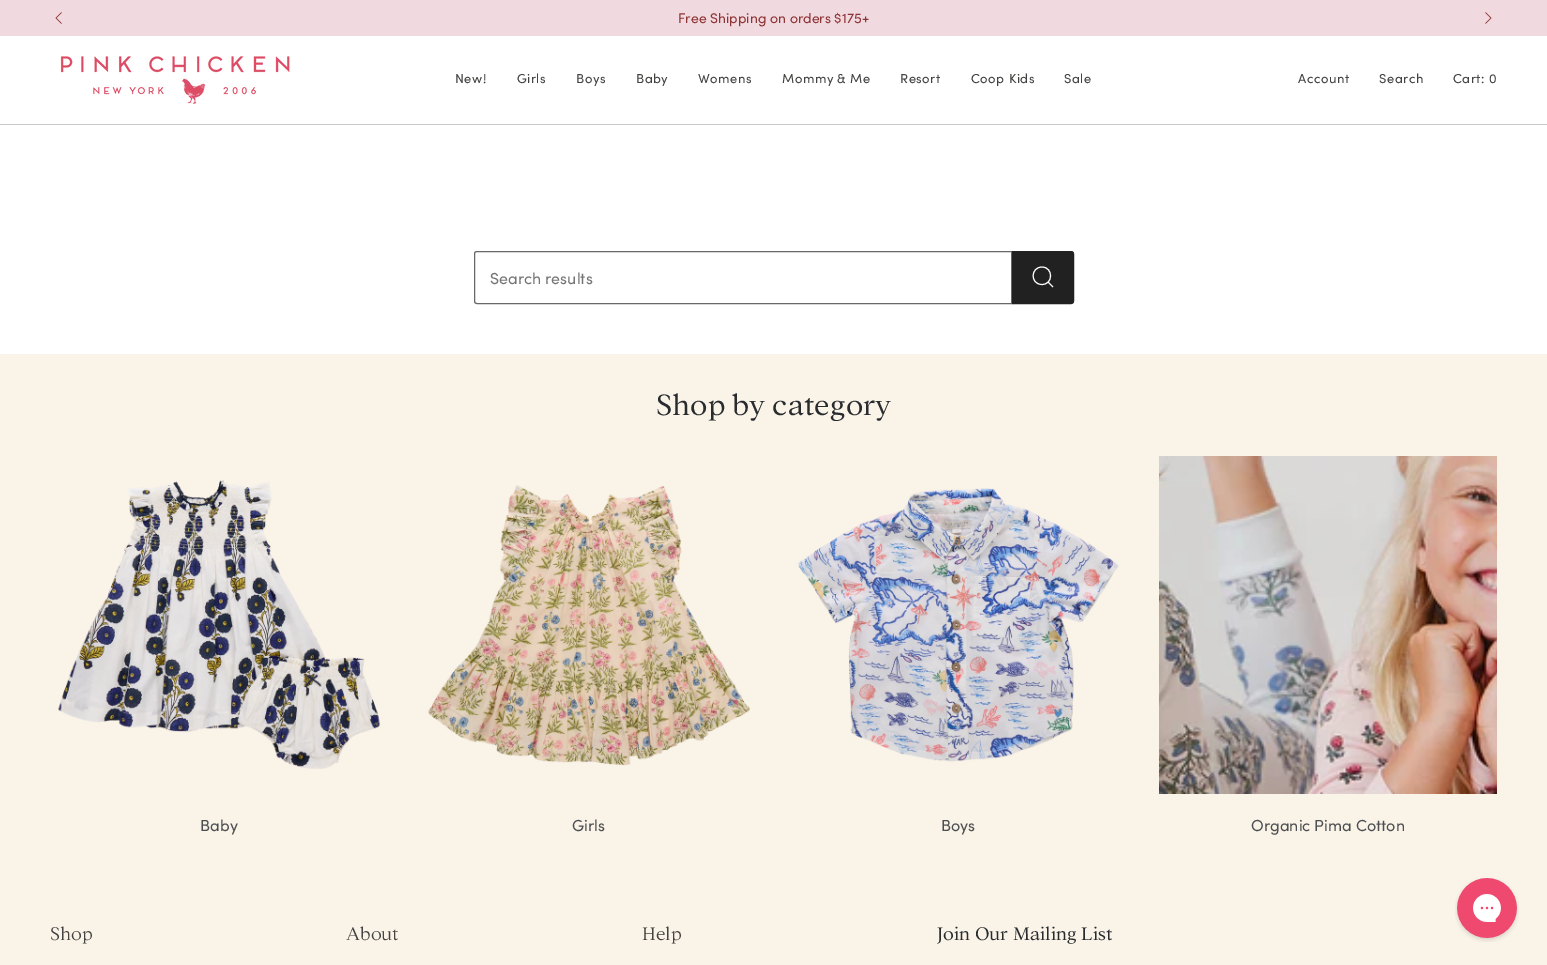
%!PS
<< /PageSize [1547 965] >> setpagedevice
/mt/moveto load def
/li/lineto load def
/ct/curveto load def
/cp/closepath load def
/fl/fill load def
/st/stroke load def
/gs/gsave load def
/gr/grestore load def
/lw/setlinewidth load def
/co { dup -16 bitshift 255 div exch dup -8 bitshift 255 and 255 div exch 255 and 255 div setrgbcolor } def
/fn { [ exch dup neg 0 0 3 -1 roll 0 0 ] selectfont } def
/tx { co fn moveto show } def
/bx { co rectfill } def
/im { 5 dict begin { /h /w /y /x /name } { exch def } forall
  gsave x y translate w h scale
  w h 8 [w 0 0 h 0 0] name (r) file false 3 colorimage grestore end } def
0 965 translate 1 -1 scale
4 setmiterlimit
0 0 1547 965 16#FFFFFF bx
0 0 1547 36 16#F1DADF bx
16#8F3436 co
.7 lw
61.5 23.5 mt 56 18 li 61.5 12.5 li st
1485.5 12.5 mt 1491 18 li 1485.5 23.5 li st
(media/1.raw) 60 56 230 48 im
0 124 1547 1 16#C8C8C8 bx
16#686868 co
1 lw
477 251.5 mt 1011.5 251.5 li 1011.5 303.5 li 477 303.5 li 475.5 303.5 474.5 302.5 474.5 301 ct 474.5 254 li 474.5 252.5 475.5 251.5 477 251.5 ct cp st
16#212121 co
1012.5 251.5 mt 1071 251.5 li 1072.5 251.5 1073.5 252.5 1073.5 254 ct 1073.5 301 li 1073.5 302.5 1072.5 303.5 1071 303.5 ct 1012.5 303.5 li cp gs fl gr
st
16#FFFFFF co
1042 267 mt 1053.5 267 1053.5 285 1041.5 284.5 ct 1030 284 1030.5 267 1042 267 ct cp 1048 282 mt 1053 287 li st
0 354 1547 611 16#FAF3E8 bx
(media/2.raw) 58 480 322 289 im
(media/3.raw) 428 485 322 281 im
(media/4.raw) 798 488 321 274 im
(media/5.raw) 1159 456 338 338 im
(media/6.raw) 1455 878 64 64 im
(Free Shipping on orders $175+) 678 23 /Sofia-Regular 14 16#8F3436 tx
/Sofia-Regular 13 fn
16#434240 co
455 83 mt .5 0 (New!) ashow
517 83 mt .5 0 (Girls) ashow
576 83 mt .5 0 (Boys) ashow
636 83 mt .5 0 (Baby) ashow
698 83 mt .5 0 (Womens) ashow
782 83 mt .5 0 (Mommy & Me) ashow
900 83 mt .5 0 (Resort) ashow
971 83 mt .5 0 (Coop Kids) ashow
1064 83 mt .5 0 (Sale) ashow
1298 83 mt .5 0 (Account) ashow
1379 83 mt .5 0 (Search) ashow
1453 83 mt .5 0 (Cart: 0) ashow
(Search results) 490 284 /Sofia-Regular 16 16#757575 tx
(Shop by category) 656 415 /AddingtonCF-Light 32 16#282C2E tx
(Baby) 200 831 /Sofia-Regular 16 16#4C4F51 tx
(Girls) 572 831 /Sofia-Regular 16 16#4C4F51 tx
(Boys) 941 831 /Sofia-Regular 16 16#4C4F51 tx
(Organic Pima Cotton) 1251 831 /Sofia-Regular 16 16#4C4F51 tx
(Shop) 50 940 /AddingtonCF-Thin 20 16#434240 tx
(About) 346 940 /AddingtonCF-Thin 20 16#434240 tx
(Help) 642 940 /AddingtonCF-Thin 20 16#434240 tx
(Join Our Mailing List) 937 940 /AddingtonCF-Light 20 16#282C2E tx
showpage
